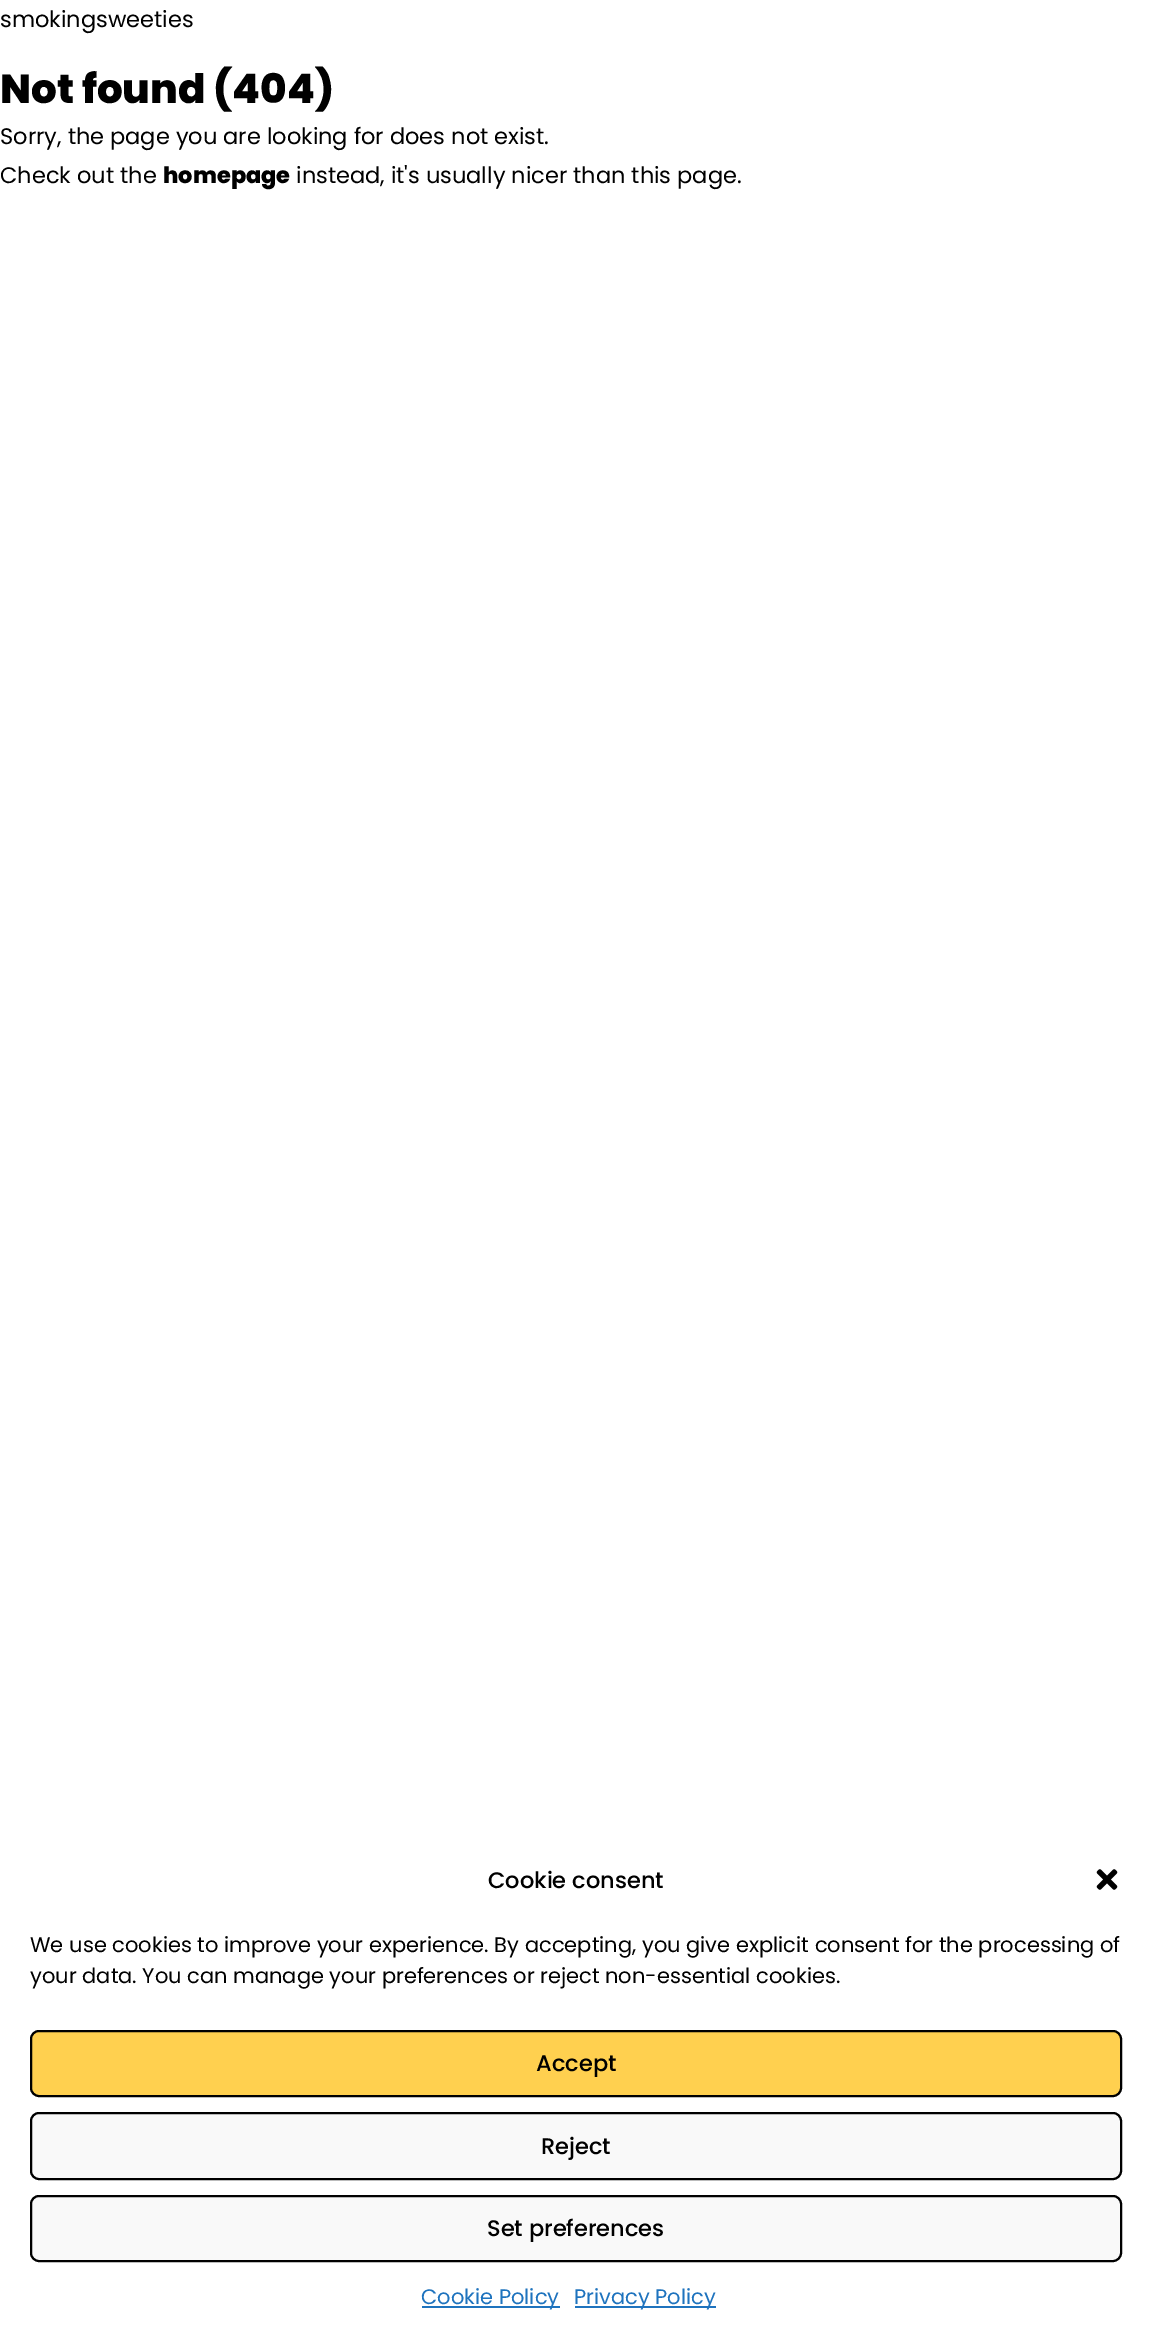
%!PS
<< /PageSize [1152 2338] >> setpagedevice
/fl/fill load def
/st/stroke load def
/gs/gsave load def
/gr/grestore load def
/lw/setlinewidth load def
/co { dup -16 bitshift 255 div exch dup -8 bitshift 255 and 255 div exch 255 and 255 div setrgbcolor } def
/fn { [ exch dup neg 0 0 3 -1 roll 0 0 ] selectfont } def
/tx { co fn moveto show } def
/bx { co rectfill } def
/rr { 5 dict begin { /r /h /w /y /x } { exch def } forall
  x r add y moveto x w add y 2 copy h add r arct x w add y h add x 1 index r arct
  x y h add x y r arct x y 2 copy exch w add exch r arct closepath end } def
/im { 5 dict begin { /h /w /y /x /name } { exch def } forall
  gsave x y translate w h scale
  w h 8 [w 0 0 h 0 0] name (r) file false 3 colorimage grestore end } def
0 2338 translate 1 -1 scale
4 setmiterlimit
0 0 1152 2338 16#FFFFFF bx
(media/1.raw) 1096 1869 22 21 im
16#FFD04F co
31 2031 1090 65 8 rr gs fl gr
16#000000 co
2 lw
st
16#F9F9F9 co
31 2113 1090 66 8 rr gs fl gr
16#000000 co
st
16#F9F9F9 co
31 2196 1090 65 8 rr gs fl gr
16#000000 co
st
422 2306 138 2 16#1E73BE bx
575 2306 141 2 16#1E73BE bx
(smokingsweeties) 0 27 /Poppins-Regular 22.5 16#000000 tx
(Not found \(404\)) 0 103 /Poppins-ExtraBold 40.5 16#000000 tx
(Sorry, the page you are looking for does not exist.) 0 144 /Poppins-Regular 22.5 16#000000 tx
(Check out the) 0 183 /Poppins-Regular 22.5 16#000000 tx
(homepage) 163 183 /Poppins-ExtraBold 22.5 16#000000 tx
(instead, it's usually nicer than this page.) 296 183 /Poppins-Regular 22.5 16#000000 tx
(Cookie consent) 488 1888 /Poppins-Medium 22.5 16#000000 tx
(We use cookies to improve your experience. By accepting, you give explicit consent for the processing of) 30 1952 /Poppins-Regular 21 16#000000 tx
(your data. You can manage your preferences or reject non-essential cookies.) 30 1983 /Poppins-Regular 21 16#000000 tx
(Accept) 536 2071 /Poppins-Medium 22.5 16#000000 tx
(Reject) 541 2154 /Poppins-Medium 22.5 16#000000 tx
(Set preferences) 487 2236 /Poppins-Medium 22.5 16#000000 tx
(Cookie Policy) 421 2304 /Poppins-Regular 21 16#1E73BE tx
(Privacy Policy) 574 2304 /Poppins-Regular 21 16#1E73BE tx
showpage
